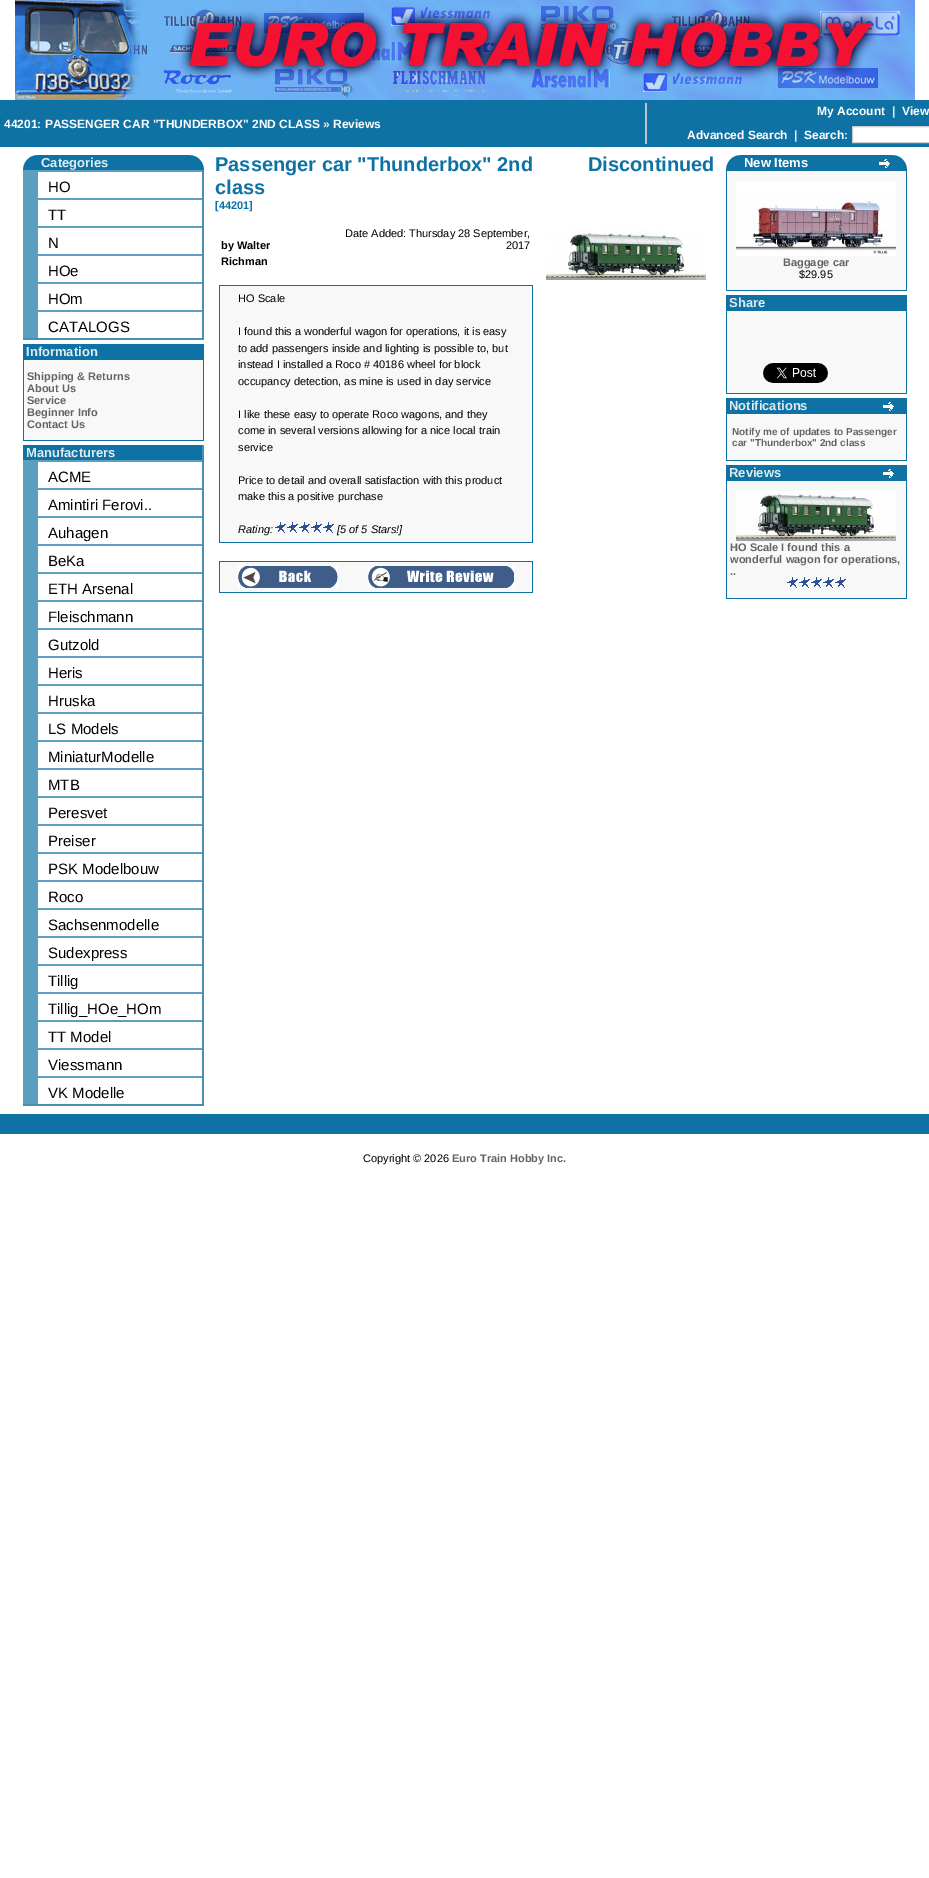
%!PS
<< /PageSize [929 1878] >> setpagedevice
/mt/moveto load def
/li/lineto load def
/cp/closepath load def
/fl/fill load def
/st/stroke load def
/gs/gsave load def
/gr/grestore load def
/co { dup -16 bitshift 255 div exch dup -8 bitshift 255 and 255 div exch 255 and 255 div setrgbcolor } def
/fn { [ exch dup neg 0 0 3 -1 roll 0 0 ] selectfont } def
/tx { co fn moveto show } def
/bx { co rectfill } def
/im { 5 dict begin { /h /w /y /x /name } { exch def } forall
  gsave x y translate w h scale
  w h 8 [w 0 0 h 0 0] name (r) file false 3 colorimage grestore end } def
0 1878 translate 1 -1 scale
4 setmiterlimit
0 0 929 1878 16#FFFFFF bx
(media/1.raw) 15 0 900 100 im
0 100 929 47 16#0E72A4 bx
645 103 2 41 16#BBC3D3 bx
16#FFFFFF co
852.5 126.5 mt 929.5 126.5 li 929.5 142.5 li 852.5 142.5 li cp gs fl gr
16#CCCCCC co
st
23 169 15 1 16#0E72A4 bx
(media/2.raw) 23 155 15 14 im
38 155 151 15 16#0E72A4 bx
189 169 15 1 16#0E72A4 bx
(media/3.raw) 189 155 15 14 im
202 170 2 170 16#4A8EB0 bx
23 338 181 2 16#4A8EB0 bx
38 170 164 2 16#5A9EC0 bx
23 170 15 168 16#5A9EC0 bx
38 198 164 2 16#5A9EC0 bx
38 226 164 2 16#5A9EC0 bx
38 254 164 2 16#5A9EC0 bx
38 282 164 2 16#5A9EC0 bx
38 310 164 2 16#5A9EC0 bx
23 344 181 97 16#0E72A4 bx
24 360 179 80 16#F8F8F9 bx
202 445 2 661 16#4A8EB0 bx
23 1104 181 2 16#4A8EB0 bx
23 445 179 15 16#0E72A4 bx
38 460 164 2 16#5A9EC0 bx
23 460 15 644 16#5A9EC0 bx
38 488 164 2 16#5A9EC0 bx
38 516 164 2 16#5A9EC0 bx
38 544 164 2 16#5A9EC0 bx
38 572 164 2 16#5A9EC0 bx
38 600 164 2 16#5A9EC0 bx
38 628 164 2 16#5A9EC0 bx
38 656 164 2 16#5A9EC0 bx
38 684 164 2 16#5A9EC0 bx
38 712 164 2 16#5A9EC0 bx
38 740 164 2 16#5A9EC0 bx
38 768 164 2 16#5A9EC0 bx
38 796 164 2 16#5A9EC0 bx
38 824 164 2 16#5A9EC0 bx
38 852 164 2 16#5A9EC0 bx
38 880 164 2 16#5A9EC0 bx
38 908 164 2 16#5A9EC0 bx
38 936 164 2 16#5A9EC0 bx
38 964 164 2 16#5A9EC0 bx
38 992 164 2 16#5A9EC0 bx
38 1020 164 2 16#5A9EC0 bx
38 1048 164 2 16#5A9EC0 bx
38 1076 164 2 16#5A9EC0 bx
219 285 314 258 16#0E72A4 bx
220 286 312 256 16#F8F8F9 bx
(media/4.raw) 275 522 59 11 im
219 561 314 32 16#0E72A4 bx
220 562 312 30 16#F8F8F9 bx
(media/5.raw) 238 566 100 22 im
(media/6.raw) 368 566 146 22 im
(media/7.raw) 546 230 160 50 im
726 169 15 1 16#0E72A4 bx
(media/2.raw) 726 155 15 14 im
741 155 166 15 16#0E72A4 bx
(media/8.raw) 879 159 11 9 im
(media/3.raw) 892 155 15 14 im
726 170 181 121 16#0E72A4 bx
727 171 179 119 16#F8F8F9 bx
(media/9.raw) 736 181 160 75 im
726 295 181 99 16#0E72A4 bx
727 311 179 82 16#F8F8F9 bx
(media/10.raw) 763 363 65 20 im
726 398 181 63 16#0E72A4 bx
(media/8.raw) 883 402 11 9 im
727 414 179 46 16#F8F8F9 bx
726 465 181 134 16#0E72A4 bx
(media/8.raw) 883 469 11 9 im
727 481 179 117 16#F8F8F9 bx
(media/7.raw) 736 491 160 50 im
(media/4.raw) 787 577 59 11 im
0 1114 929 20 16#0E72A4 bx
(44201: PASSENGER CAR "THUNDERBOX" 2ND CLASS) 4 128 /LiberationSans-Bold 12 16#FFFFFF tx
(») 323 128 /LiberationSans-Bold 12 16#E1EAEF tx
(Reviews) 333 128 /LiberationSans-Bold 12 16#FFFFFF tx
(My Account) 817 115 /LiberationSans-Bold 12 16#FFFFFF tx
(|) 892 115 /LiberationSans-Bold 12 16#E1EAEF tx
(View) 902 115 /LiberationSans-Bold 12 16#FFFFFF tx
(Advanced Search) 687 139 /LiberationSans-Bold 12 16#FFFFFF tx
(|) 794 139 /LiberationSans-Bold 12 16#E1EAEF tx
(Search:) 804 139 /LiberationSans-Bold 12 16#FFFFFF tx
(Categories) 41 167 /LiberationSans-Bold 13 16#E1EAEF tx
(HO) 48 192 /LiberationSans-Regular 15 16#000000 tx
(TT) 48 220 /LiberationSans-Regular 15 16#000000 tx
(N) 48 248 /LiberationSans-Regular 15 16#000000 tx
(HOe) 48 276 /LiberationSans-Regular 15 16#000000 tx
(HOm) 48 304 /LiberationSans-Regular 15 16#000000 tx
(CATALOGS) 48 332 /LiberationSans-Regular 15 16#000000 tx
(Information) 26 356 /LiberationSans-Bold 13 16#E1EAEF tx
(Shipping & Returns) 27 380 /LiberationSans-Bold 11 16#636563 tx
(About Us) 27 392 /LiberationSans-Bold 11 16#636563 tx
(Service) 27 404 /LiberationSans-Bold 11 16#636563 tx
(Beginner Info) 27 416 /LiberationSans-Bold 11 16#636563 tx
(Contact Us) 27 428 /LiberationSans-Bold 11 16#636563 tx
(Manufacturers) 26 457 /LiberationSans-Bold 13 16#E1EAEF tx
(ACME) 48 482 /LiberationSans-Regular 15 16#000000 tx
(Amintiri Ferovi..) 48 510 /LiberationSans-Regular 15 16#000000 tx
(Auhagen) 48 538 /LiberationSans-Regular 15 16#000000 tx
(BeKa) 48 566 /LiberationSans-Regular 15 16#000000 tx
(ETH Arsenal) 48 594 /LiberationSans-Regular 15 16#000000 tx
(Fleischmann) 48 622 /LiberationSans-Regular 15 16#000000 tx
(Gutzold) 48 650 /LiberationSans-Regular 15 16#000000 tx
(Heris) 48 678 /LiberationSans-Regular 15 16#000000 tx
(Hruska) 48 706 /LiberationSans-Regular 15 16#000000 tx
(LS Models) 48 734 /LiberationSans-Regular 15 16#000000 tx
(MiniaturModelle) 48 762 /LiberationSans-Regular 15 16#000000 tx
(MTB) 48 790 /LiberationSans-Regular 15 16#000000 tx
(Peresvet) 48 818 /LiberationSans-Regular 15 16#000000 tx
(Preiser) 48 846 /LiberationSans-Regular 15 16#000000 tx
(PSK Modelbouw) 48 874 /LiberationSans-Regular 15 16#000000 tx
(Roco) 48 902 /LiberationSans-Regular 15 16#000000 tx
(Sachsenmodelle) 48 930 /LiberationSans-Regular 15 16#000000 tx
(Sudexpress) 48 958 /LiberationSans-Regular 15 16#000000 tx
(Tillig) 48 986 /LiberationSans-Regular 15 16#000000 tx
(Tillig_HOe_HOm) 48 1014 /LiberationSans-Regular 15 16#000000 tx
(TT Model) 48 1042 /LiberationSans-Regular 15 16#000000 tx
(Viessmann) 48 1070 /LiberationSans-Regular 15 16#000000 tx
(VK Modelle) 48 1098 /LiberationSans-Regular 15 16#000000 tx
(Passenger car "Thunderbox" 2nd) 215 171 /LiberationSans-Bold 20 16#0E72A4 tx
(class) 215 194 /LiberationSans-Bold 20 16#0E72A4 tx
([44201]) 215 209 /LiberationSans-Bold 11 16#0E72A4 tx
(Discontinued) 588 171 /LiberationSans-Bold 20 16#0E72A4 tx
(by Walter) 221 249 /LiberationSans-Bold 11 16#000000 tx
(Richman) 221 265 /LiberationSans-Bold 11 16#000000 tx
(Date Added: Thursday 28 September,) 345 237 /LiberationSans-Regular 11 16#000000 tx
(2017) 506 249 /LiberationSans-Regular 11 16#000000 tx
(HO Scale) 238 302 /LiberationSans-Regular 11 16#000000 tx
(I found this a wonderful wagon for operations, it is easy) 238 335 /LiberationSans-Regular 11 16#000000 tx
(to add passengers inside and lighting is possible to, but) 238 352 /LiberationSans-Regular 11 16#000000 tx
(instead I installed a Roco # 40186 wheel for block) 238 368 /LiberationSans-Regular 11 16#000000 tx
(occupancy detection, as mine is used in day service) 238 385 /LiberationSans-Regular 11 16#000000 tx
(I like these easy to operate Roco wagons, and they) 238 418 /LiberationSans-Regular 11 16#000000 tx
(come in several versions allowing for a nice local train) 238 434 /LiberationSans-Regular 11 16#000000 tx
(service) 238 451 /LiberationSans-Regular 11 16#000000 tx
(Price to detail and overall satisfaction with this product) 238 484 /LiberationSans-Regular 11 16#000000 tx
(make this a positive purchase) 238 500 /LiberationSans-Regular 11 16#000000 tx
(Rating:) 238 533 /LiberationSans-Italic 11 16#000000 tx
([5 of 5 Stars!]) 337 533 /LiberationSans-Italic 11 16#000000 tx
(New Items) 744 167 /LiberationSans-Bold 13 16#FFFFFF tx
(Baggage car) 783 266 /LiberationSans-Bold 11 16#636563 tx
($29.95) 799 278 /LiberationSans-Regular 11 16#000000 tx
(Share) 729 307 /LiberationSans-Bold 13 16#E1EAEF tx
(Notifications) 729 410 /LiberationSans-Bold 13 16#E1EAEF tx
(Notify me of updates to Passenger) 732 435 /LiberationSans-Bold 10 16#636563 tx
(car "Thunderbox" 2nd class) 732 446 /LiberationSans-Bold 10 16#636563 tx
(Reviews) 729 477 /LiberationSans-Bold 13 16#E1EAEF tx
(HO Scale I found this a) 730 551 /LiberationSans-Bold 11 16#636563 tx
(wonderful wagon for operations,) 730 563 /LiberationSans-Bold 11 16#636563 tx
(..) 730 575 /LiberationSans-Bold 11 16#636563 tx
(Copyright © 2026) 363 1162 /LiberationSans-Regular 11 16#000000 tx
(Euro Train Hobby Inc.) 452 1162 /LiberationSans-Bold 11 16#636563 tx
showpage
